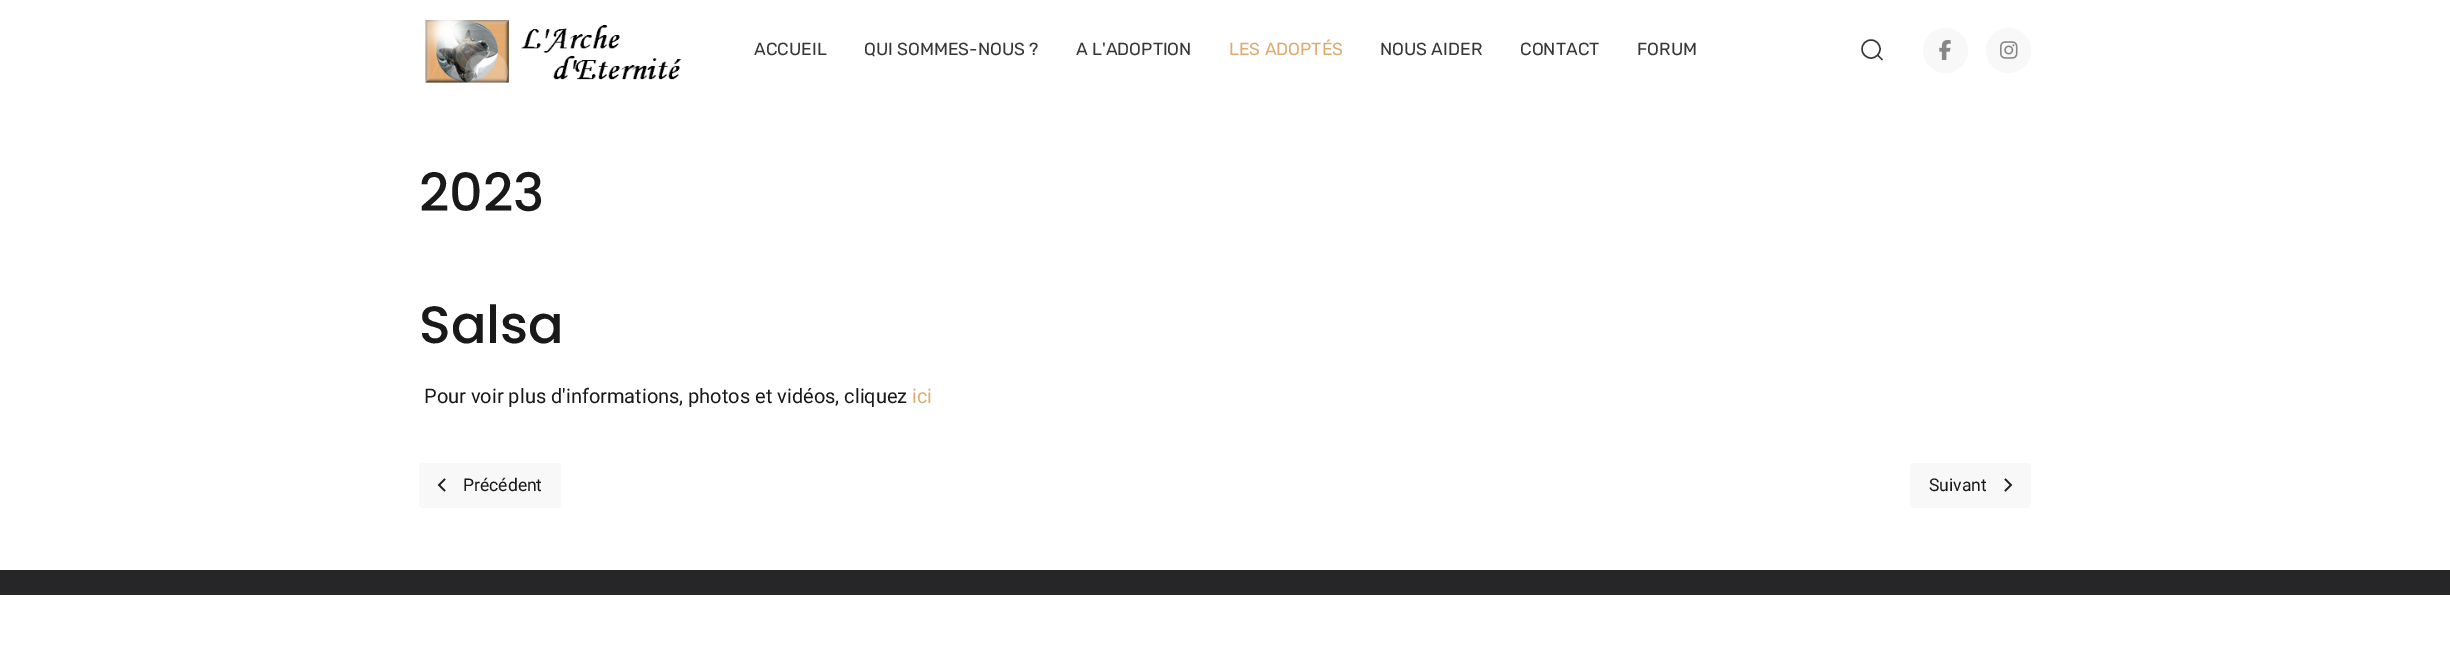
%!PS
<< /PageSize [2450 666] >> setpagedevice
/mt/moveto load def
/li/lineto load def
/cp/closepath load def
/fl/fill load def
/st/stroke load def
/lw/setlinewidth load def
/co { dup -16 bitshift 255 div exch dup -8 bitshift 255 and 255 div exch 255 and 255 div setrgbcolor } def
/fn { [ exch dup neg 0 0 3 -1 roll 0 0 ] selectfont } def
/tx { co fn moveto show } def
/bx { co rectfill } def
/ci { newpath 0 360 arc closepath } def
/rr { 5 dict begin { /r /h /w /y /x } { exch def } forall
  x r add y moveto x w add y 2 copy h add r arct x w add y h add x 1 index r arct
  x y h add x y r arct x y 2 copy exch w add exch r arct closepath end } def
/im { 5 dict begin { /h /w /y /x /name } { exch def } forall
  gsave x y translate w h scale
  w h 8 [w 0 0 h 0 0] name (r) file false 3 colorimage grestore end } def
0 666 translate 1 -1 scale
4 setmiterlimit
0 0 2450 666 16#FFFFFF bx
(media/1.raw) 425 20 257 63 im
16#373737 co
1.4 lw
1871 49 9 ci st
1877.5 55 mt 1882.5 60 li cp st
16#F8F8F8 co
1945.5 50.5 22.5 ci fl
(media/2.raw) 1939 40 12 20 im
2008.5 50.5 22.5 ci fl
(media/3.raw) 2000 41 18 18 im
419 463 142 45 4 rr fl
16#1C1C1C co
1.5 lw
445 479 mt 439 485 li 445 491 li st
16#F8F8F8 co
1910 463 121 45 4 rr fl
16#1C1C1C co
2005 479 mt 2011 485 li 2005 491 li st
0 570 2450 25 16#262628 bx
(ACCUEIL) 754 55 /Rubik-Regular 17.5 16#373737 tx
(QUI SOMMES-NOUS ?) 864 55 /Rubik-Regular 17.5 16#373737 tx
(A L'ADOPTION) 1076 55 /Rubik-Regular 17.5 16#373737 tx
(LES ADOPTÉS) 1229 55 /Rubik-Regular 17.5 16#DEAB71 tx
(NOUS AIDER) 1380 55 /Rubik-Regular 17.5 16#373737 tx
(CONTACT) 1520 55 /Rubik-Regular 17.5 16#373737 tx
(FORUM) 1637 55 /Rubik-Regular 17.5 16#373737 tx
(2023) 419 211 /Poppins-Medium 52.5 16#191919 tx
(Salsa) 419 343 /Poppins-Medium 52.5 16#191919 tx
(Pour voir plus d'informations, photos et vidéos, cliquez) 424 403 /Roboto-Regular 20 16#191919 tx
(ici) 912 403 /Roboto-Regular 20 16#DEAB71 tx
(Précédent) 463 491 /Roboto-Regular 17.5 16#191919 tx
(Suivant) 1929 491 /Roboto-Regular 17.5 16#191919 tx
showpage
